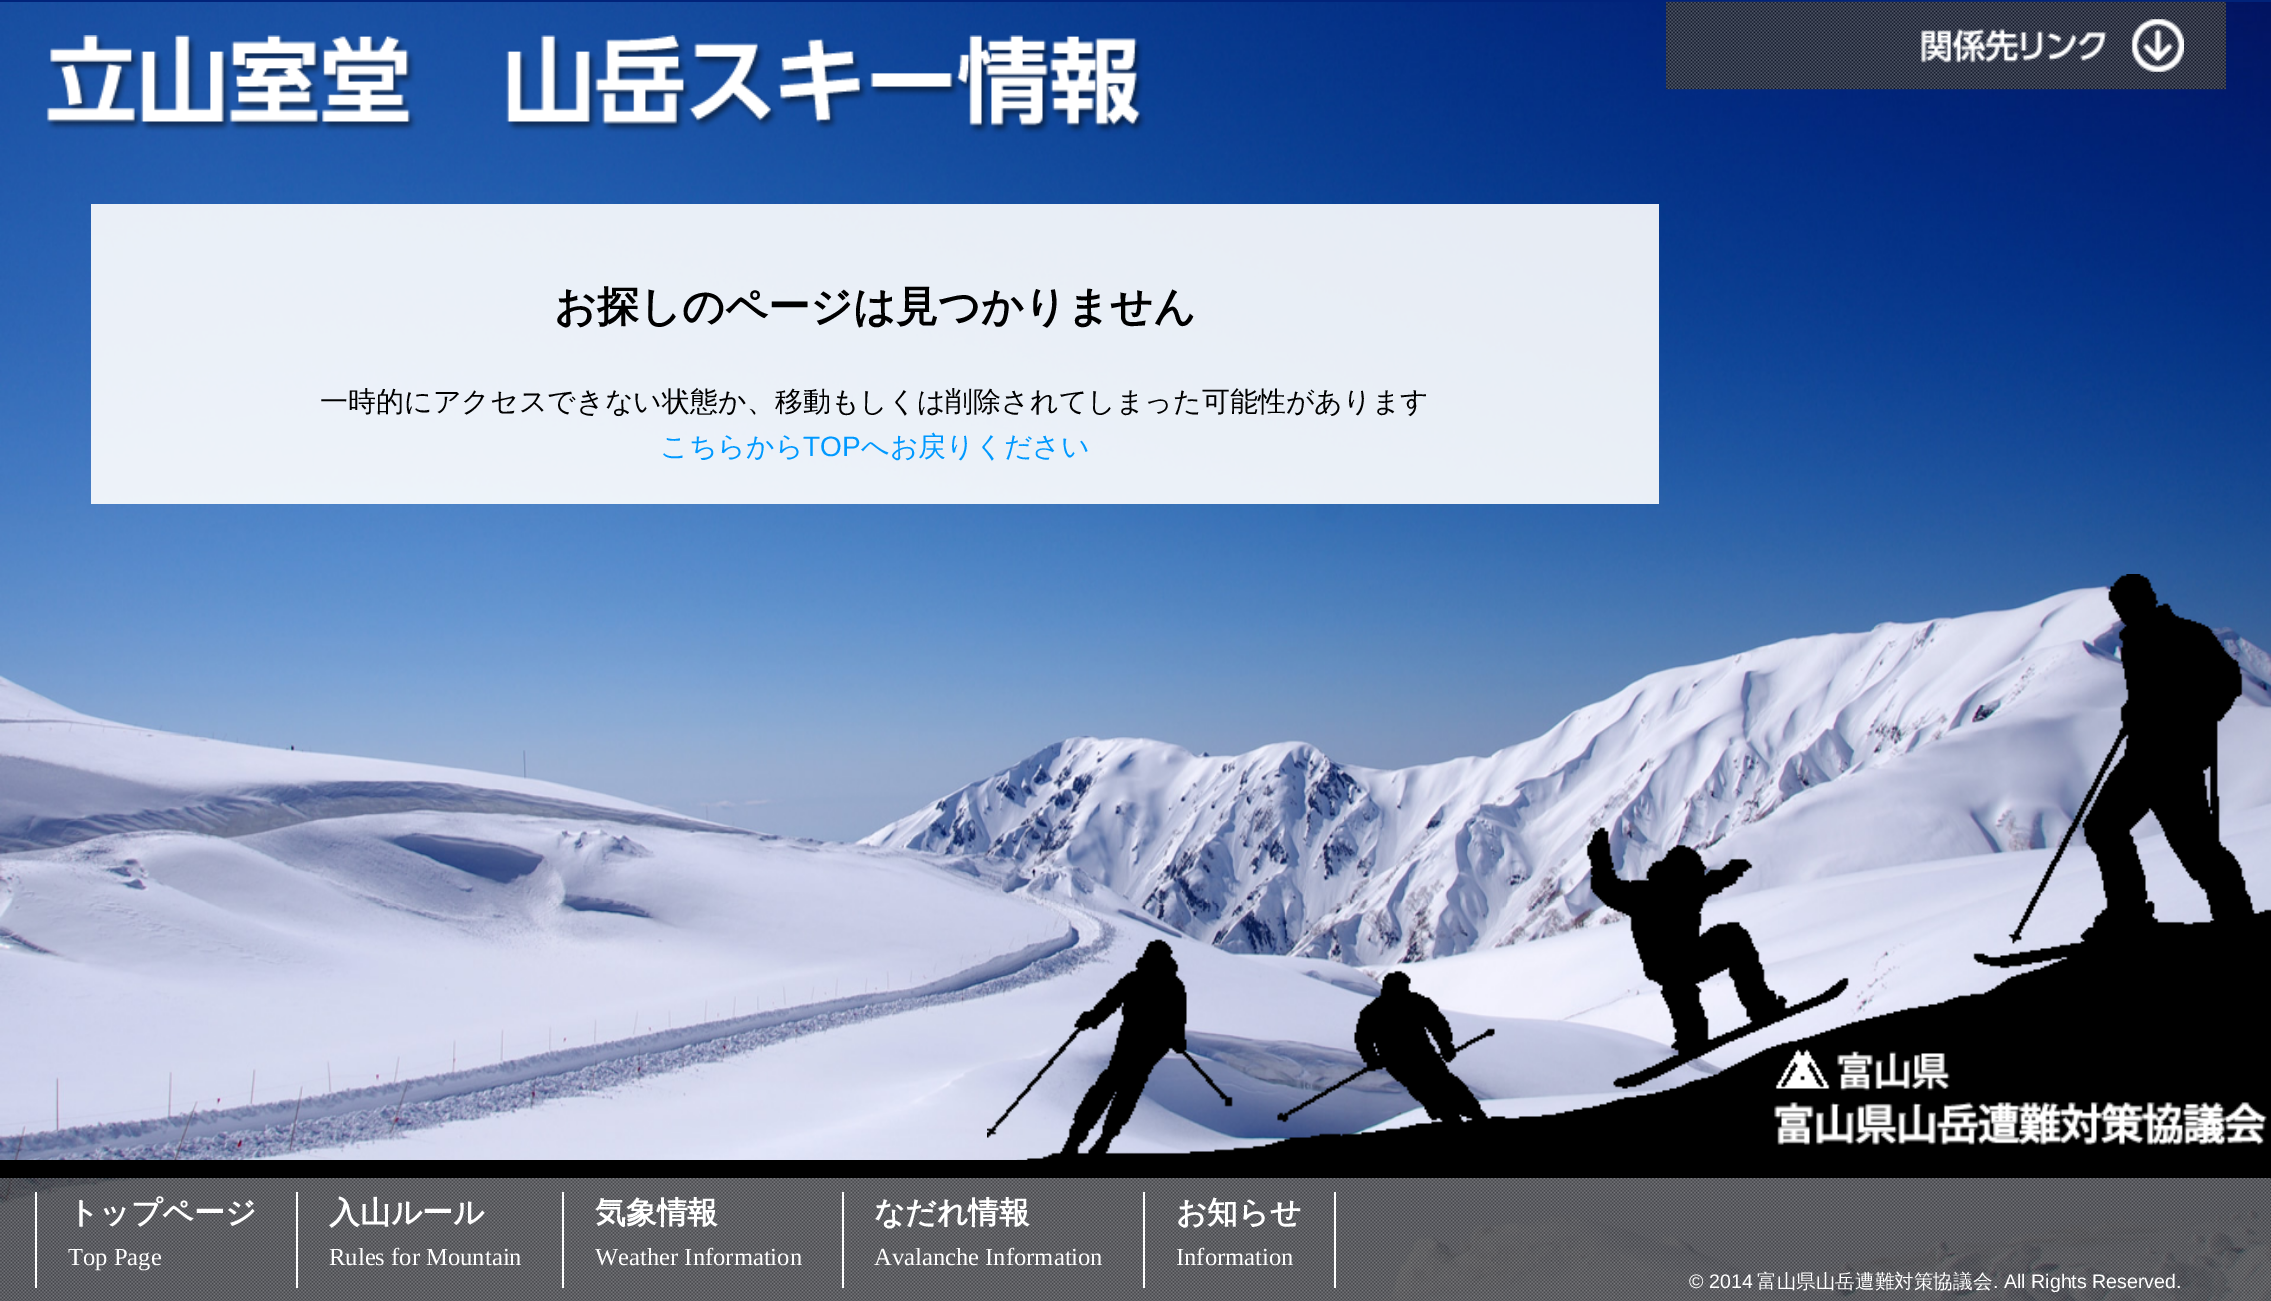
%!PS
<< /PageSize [2271 1301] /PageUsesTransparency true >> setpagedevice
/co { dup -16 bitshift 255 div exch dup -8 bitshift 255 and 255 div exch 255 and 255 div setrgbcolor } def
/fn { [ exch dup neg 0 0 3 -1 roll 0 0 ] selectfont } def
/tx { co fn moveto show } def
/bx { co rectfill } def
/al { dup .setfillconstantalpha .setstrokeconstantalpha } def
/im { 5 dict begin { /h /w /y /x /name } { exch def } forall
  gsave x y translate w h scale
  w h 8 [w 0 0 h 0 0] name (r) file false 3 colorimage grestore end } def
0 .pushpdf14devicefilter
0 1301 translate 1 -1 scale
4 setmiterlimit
0 0 2271 1301 16#FFFFFF bx
(media/1.raw) 0 2 2271 1299 im
(media/2.raw) 987 574 1284 586 im
0 0 2271 2 16#01237A bx
(media/3.raw) 46 35 1099 99 im
(media/4.raw) 1666 1 560 89 im
(media/5.raw) 1921 19 263 53 im
0.9 al
91 204 1568 300 16#FFFFFF bx
1 al
(media/6.raw) 0 1178 2271 123 im
0 1160 2271 18 16#000000 bx
35 1192 2 96 16#FFFFFF bx
296 1192 2 96 16#FFFFFF bx
562 1192 2 96 16#FFFFFF bx
842 1192 2 96 16#FFFFFF bx
1334 1192 2 96 16#FFFFFF bx
1143 1192 2 96 16#FFFFFF bx
(お探しのページは見つかりません) 554 321 /WenQuanYiZenHei-Bold 42 16#000000 tx
(一時的にアクセスできない状態か、移動もしくは削除されてしまった可能性があります) 320 411 /WenQuanYiZenHei-Medium 28 16#000000 tx
(こちらから) 660 456 /WenQuanYiZenHei-Medium 28 16#0099FF tx
(TOP) 803 456 /LiberationSans-Regular 28 16#0099FF tx
(へお戻りください) 861 456 /WenQuanYiZenHei-Medium 28 16#0099FF tx
(トップページ) 68 1223 /WenQuanYiZenHei-Bold 30.75 16#FFFFFF tx
(Top Page) 68 1265 /LiberationSerif-Regular 24.6 16#FFFFFF tx
(入山ルール) 329 1223 /WenQuanYiZenHei-Bold 30.75 16#FFFFFF tx
(Rules for Mountain) 329 1265 /LiberationSerif-Regular 24.6 16#FFFFFF tx
(気象情報) 595 1223 /WenQuanYiZenHei-Bold 30.75 16#FFFFFF tx
(Weather Information) 595 1265 /LiberationSerif-Regular 24.6 16#FFFFFF tx
(なだれ情報) 874 1223 /WenQuanYiZenHei-Bold 30.75 16#FFFFFF tx
(Avalanche Information) 874 1265 /LiberationSerif-Regular 24.6 16#FFFFFF tx
(お知らせ) 1176 1223 /WenQuanYiZenHei-Bold 30.75 16#FFFFFF tx
(Information) 1176 1265 /LiberationSerif-Regular 24.6 16#FFFFFF tx
(© 2014) 1689 1288 /LiberationSans-Regular 19.6 16#FFFFFF tx
(富山県山岳遭難対策協議会) 1757 1288 /WenQuanYiZenHei-Medium 19.6 16#FFFFFF tx
(. All Rights Reserved.) 1993 1288 /LiberationSans-Regular 19.6 16#FFFFFF tx
.poppdf14devicefilter showpage
